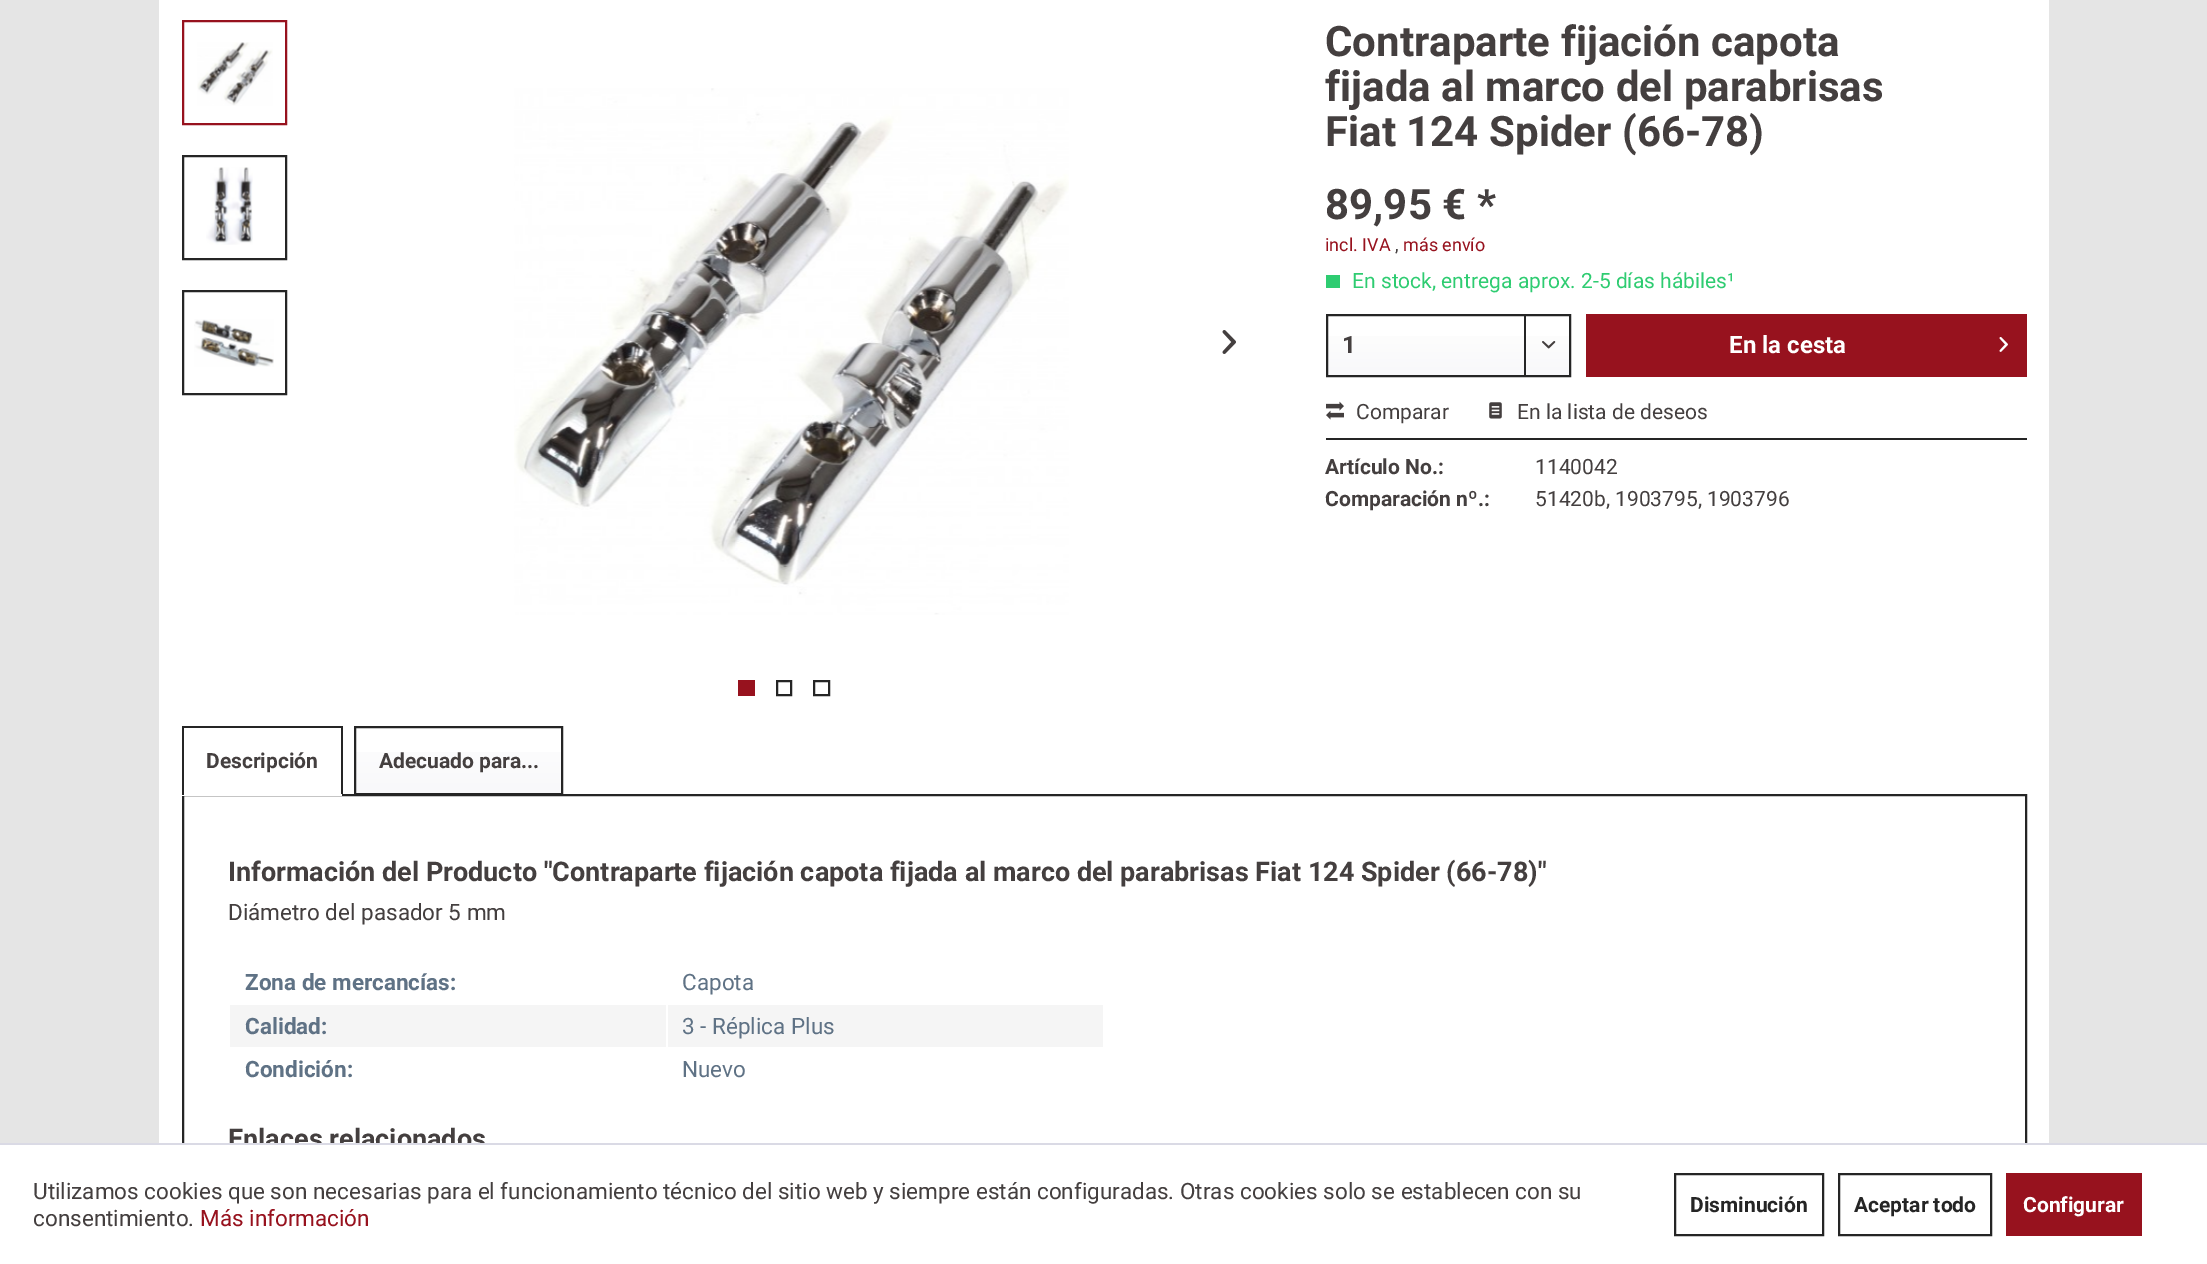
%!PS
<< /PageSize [2207 1264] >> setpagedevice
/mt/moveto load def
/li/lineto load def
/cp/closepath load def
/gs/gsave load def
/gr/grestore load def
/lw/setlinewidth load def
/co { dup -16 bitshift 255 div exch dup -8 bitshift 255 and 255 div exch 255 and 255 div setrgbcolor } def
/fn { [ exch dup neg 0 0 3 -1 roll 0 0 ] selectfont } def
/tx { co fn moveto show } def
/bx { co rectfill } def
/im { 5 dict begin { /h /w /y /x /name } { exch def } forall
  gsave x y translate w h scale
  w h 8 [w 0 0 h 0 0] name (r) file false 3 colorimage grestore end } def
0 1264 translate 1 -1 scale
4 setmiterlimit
0 0 2207 1264 16#E5E5E5 bx
159 0 1890 1143 16#FFFFFF bx
16#97121E co
2 lw
183 21 103 103 rectstroke
(media/1.raw) 197 42 76 64 im
16#252525 co
183 156 103 103 rectstroke
(media/2.raw) 206 167 47 78 im
183 291 103 103 rectstroke
(media/3.raw) 194 319 80 48 im
(media/4.raw) 514 88 555 527 im
(media/5.raw) 1222 330 14 24 im
738 680 17 16 16#97121E bx
16#252525 co
777 681 14 14 rectstroke
814 681 15 14 rectstroke
1326 275 14 13 16#2ECC71 bx
gs 1328 336 mt 1569 336 li 1569 375 li 1328 375 li cp clip newpath
<< /ShadingType 2 /ColorSpace /DeviceRGB /Coords [1448 315 1448 375] /Extend [true true] /Function << /FunctionType 2 /Domain [0 1] /C0 [1 1 1] /C1 [.973 .973 .98] /N 1 >> >> shfill gr
16#252525 co
1327 315 243 61 rectstroke
1524 315 2 60 16#252525 bx
(media/6.raw) 1542 341 14 8 im
1586 314 441 63 16#97121E bx
(media/7.raw) 1999 337 9 15 im
1326 438 701 2 16#252525 bx
(media/8.raw) 1326 401 18 19 im
(media/9.raw) 1489 402 13 17 im
182 726 160 2 16#252525 bx
183 795 1843 439 rectstroke
341 726 2 69 16#252525 bx
182 794 160 2 16#FFFFFF bx
182 726 2 69 16#252525 bx
gs 356 752 mt 561 752 li 561 793 li 356 793 li cp clip newpath
<< /ShadingType 2 /ColorSpace /DeviceRGB /Coords [458 728 458 794] /Extend [true true] /Function << /FunctionType 2 /Domain [0 1] /C0 [1 1 1] /C1 [.973 .973 .98] /N 1 >> >> shfill gr
355 727 207 67 rectstroke
230 1005 436 42 16#F5F5F5 bx
668 1005 435 42 16#F5F5F5 bx
(Contraparte fijación capota) 1325 56 /Roboto-Bold 42 16#443F3F tx
(fijada al marco del parabrisas) 1325 101 /Roboto-Bold 42 16#443F3F tx
(Fiat 124 Spider \(66-78\)) 1325 146 /Roboto-Bold 42 16#443F3F tx
(89,95 € *) 1325 219 /Roboto-Bold 42 16#443F3F tx
(incl. IVA) 1325 251 /Roboto-Regular 18 16#97121E tx
(,) 1395 251 /Roboto-Regular 18 16#443F3F tx
(más envío) 1403 251 /Roboto-Regular 18 16#97121E tx
(En stock, entrega aprox. 2-5 días hábiles¹) 1352 288 /Roboto-Regular 21 16#2ECC71 tx
(1) 1342 353 /Roboto-Bold 24 16#443F3F tx
(En la cesta) 1729 353 /Roboto-Bold 24 16#FFFFFF tx
(Comparar) 1356 419 /Roboto-Regular 21 16#443F3F tx
(En la lista de deseos) 1517 419 /Roboto-Regular 21 16#443F3F tx
(Artículo No.:) 1325 474 /Roboto-Bold 21 16#443F3F tx
(1140042) 1535 474 /Roboto-Regular 21 16#443F3F tx
(Comparación nº.:) 1325 506 /Roboto-Bold 21 16#443F3F tx
(51420b, 1903795, 1903796) 1535 506 /Roboto-Regular 21 16#443F3F tx
(Descripción) 206 768 /Roboto-Bold 21 16#443F3F tx
(Adecuado para...) 379 768 /Roboto-Bold 21 16#443F3F tx
(Información del Producto "Contraparte fijación capota fijada al marco del parabrisas Fiat 124 Spider \(66-78\)") 228 881 /Roboto-Bold 27 16#443F3F tx
(Diámetro del pasador 5 mm) 228 920 /Roboto-Regular 22.5 16#443F3F tx
(Zona de mercancías:) 245 990 /Roboto-Bold 22.5 16#5F7285 tx
(Capota) 682 990 /Roboto-Regular 22.5 16#5F7285 tx
(Calidad:) 245 1034 /Roboto-Bold 22.5 16#5F7285 tx
(3 - Réplica Plus) 682 1034 /Roboto-Regular 22.5 16#5F7285 tx
(Condición:) 245 1077 /Roboto-Bold 22.5 16#5F7285 tx
(Nuevo) 682 1077 /Roboto-Regular 22.5 16#5F7285 tx
(Enlaces relacionados) 228 1148 /Roboto-Bold 27 16#443F3F tx
0 1145 2207 119 16#FFFFFF bx
0 1143 2207 2 16#DADAE5 bx
(Utilizamos cookies que son necesarias para el funcionamiento técnico del sitio web y siempre están configuradas. Otras cookies solo se establecen con su) 33 1199 /Roboto-Regular 22.5 16#443F3F tx
(consentimiento.) 33 1226 /Roboto-Regular 22.5 16#443F3F tx
(Más información) 200 1226 /Roboto-Regular 22.5 16#97121E tx
16#252525 co
1675 1174 148 61 rectstroke
(Disminución) 1690 1212 /Roboto-Bold 21 16#252525 tx
1839 1174 152 61 rectstroke
(Aceptar todo) 1854 1212 /Roboto-Bold 21 16#252525 tx
2006 1173 136 63 16#97121E bx
(Configurar) 2023 1212 /Roboto-Bold 21 16#FFFFFF tx
showpage
